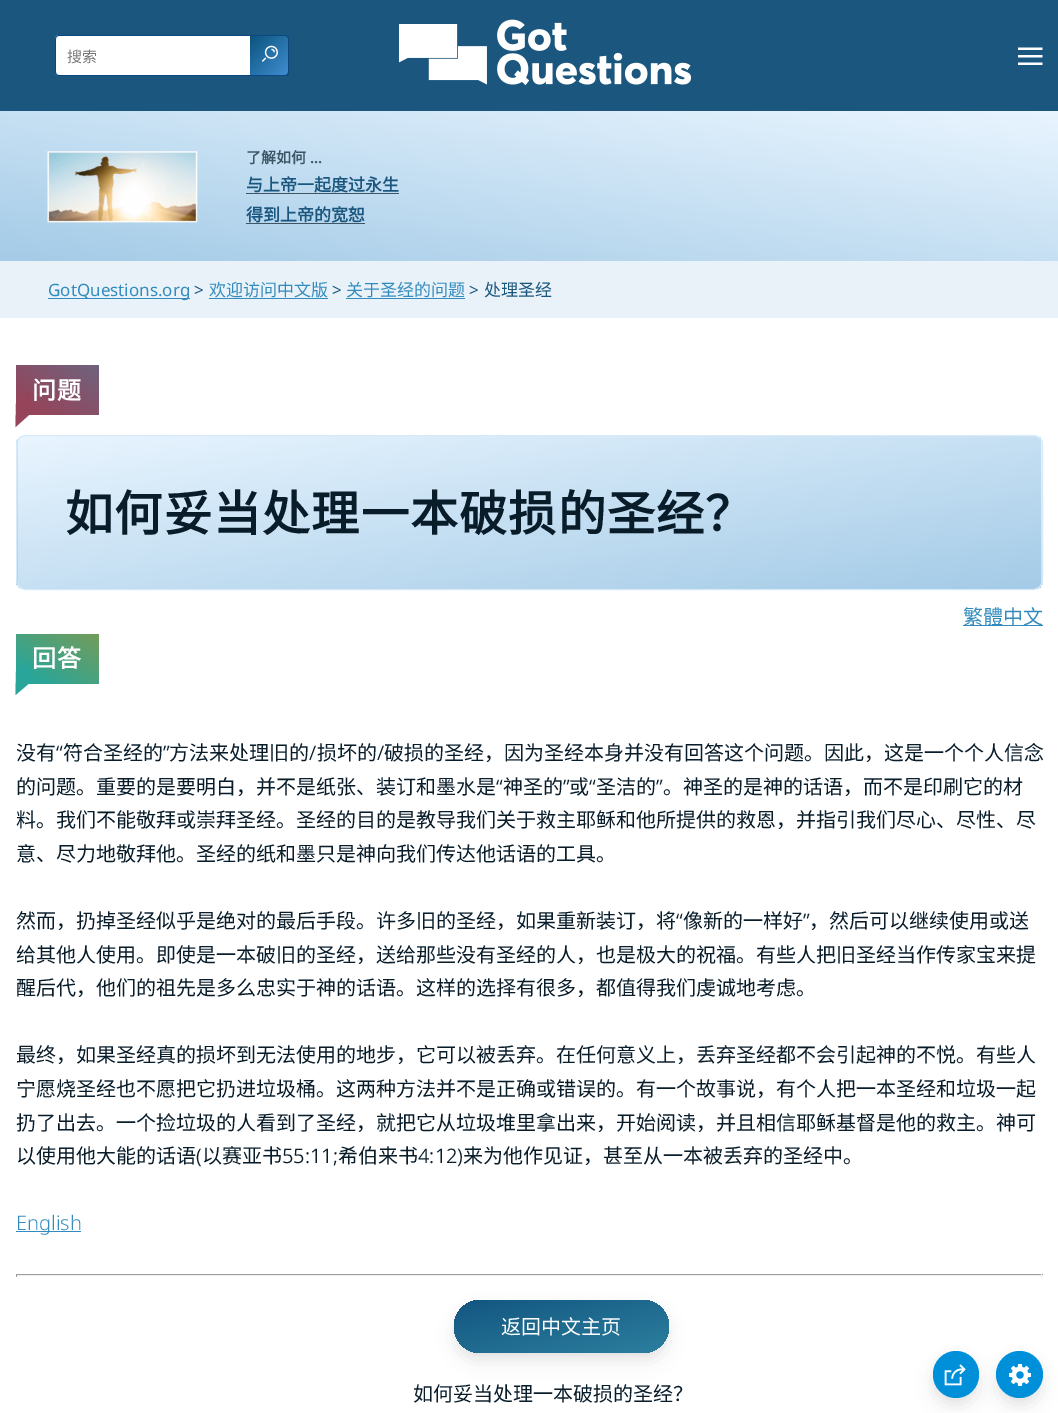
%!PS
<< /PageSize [1058 1413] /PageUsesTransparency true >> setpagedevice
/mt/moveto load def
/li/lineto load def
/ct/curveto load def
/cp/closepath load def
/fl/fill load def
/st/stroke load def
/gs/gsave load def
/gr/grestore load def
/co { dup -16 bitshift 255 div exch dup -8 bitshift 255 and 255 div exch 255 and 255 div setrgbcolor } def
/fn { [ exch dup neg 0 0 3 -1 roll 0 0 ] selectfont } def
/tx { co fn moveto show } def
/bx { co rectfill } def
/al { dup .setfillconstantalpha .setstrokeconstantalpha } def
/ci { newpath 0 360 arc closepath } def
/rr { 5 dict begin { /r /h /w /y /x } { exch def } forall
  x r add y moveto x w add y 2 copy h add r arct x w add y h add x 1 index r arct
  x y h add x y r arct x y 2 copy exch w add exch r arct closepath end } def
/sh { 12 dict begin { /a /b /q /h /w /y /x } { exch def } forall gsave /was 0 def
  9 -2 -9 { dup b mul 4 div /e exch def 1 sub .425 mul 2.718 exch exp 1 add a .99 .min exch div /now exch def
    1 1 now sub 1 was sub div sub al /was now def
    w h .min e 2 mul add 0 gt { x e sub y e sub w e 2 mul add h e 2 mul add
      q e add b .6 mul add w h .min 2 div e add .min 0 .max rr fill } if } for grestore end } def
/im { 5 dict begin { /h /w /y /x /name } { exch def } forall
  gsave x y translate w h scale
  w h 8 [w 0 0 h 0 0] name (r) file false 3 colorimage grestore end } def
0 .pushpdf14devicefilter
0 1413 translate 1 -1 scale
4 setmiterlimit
0 0 1058 1413 16#FFFFFF bx
0 0 1058 111 16#1A567E bx
16#FFFFFF co
59 35 mt 250 35 li 250 76 li 59 76 li 57 76 55 74 55 72 ct 55 39 li 55 37 57 35 59 35 ct cp fl
16#094881 co
59 35 mt 250 35 li 250 76 li 59 76 li 57 76 55 75 55 72 ct 55 39 li 55 37 57 35 59 35 ct cp 59 36 mt 250 36 li 250 75 li 59 75 li 57 75 56 74 56 72 ct 56 39 li 56 37 57 36 59 36 ct cp eofill
gs 250 36 mt 288 36 li 288 75 li 250 75 li cp clip newpath
<< /ShadingType 2 /ColorSpace /DeviceRGB /Coords [249 37 288 74] /Extend [true true] /Function << /FunctionType 2 /Domain [0 1] /C0 [.039 .329 .49] /C1 [.251 .549 .816] /N 1 >> >> shfill gr
250 35 mt 285 35 li 287 35 289 37 289 39 ct 289 72 li 289 75 287 76 285 76 ct 250 76 li cp 250 36 mt 285 36 li 286 36 288 37 288 39 ct 288 72 li 288 74 286 75 285 75 ct 250 75 li cp eofill
(media/1.raw) 262 45 16 17 im
(media/2.raw) 398 19 293 67 im
(media/3.raw) 1018 47 25 18 im
gs 0 111 mt 1058 111 li 1058 261 li 0 261 li cp clip newpath
<< /ShadingType 2 /ColorSpace /DeviceRGB /Coords [509 333 550 39] /Extend [true true] /Function << /FunctionType 2 /Domain [0 1] /C0 [.643 .796 .906] /C1 [.914 .961 1] /N 1 >> >> shfill gr
(media/4.raw) 47 151 151 72 im
246 193 153 1 16#3D5565 bx
246 223 119 1 16#3D5565 bx
0 261 1058 57 16#E8F2F8 bx
48 298 142 1 16#338BBD bx
209 298 119 1 16#338BBD bx
346 298 119 1 16#338BBD bx
gs 16 365 83 50 2.5 rr clip newpath
<< /ShadingType 2 /ColorSpace /DeviceRGB /Coords [35 427 80 353] /Extend [true true] /Function << /FunctionType 3 /Domain [0 1] /Functions [<< /FunctionType 2 /Domain [0 1] /C0 [.588 .267 .353] /C1 [.588 .267 .353] /N 1 >> << /FunctionType 2 /Domain [0 1] /C0 [.588 .267 .353] /C1 [.435 .388 .494] /N 1 >>] /Bounds [.15] /Encode [0 1 0 1] >> >> shfill gr
16#96445A co
16 403.5 mt 30 391 li 29.5 414.5 li 15.5 427 li cp fl
gs
16 435 1027 155 10 rr clip newpath
gs 16 436 mt 18 436 li 18 589 li 16 589 li cp clip newpath
<< /ShadingType 2 /ColorSpace /DeviceRGB /Coords [-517 363 -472 662] /Extend [true true] /Function << /FunctionType 2 /Domain [0 1] /C0 [.914 .961 1] /C1 [.643 .796 .906] /N 1 >> >> shfill gr
gs 18 436 mt 1041 436 li 1041 589 li 18 589 li cp clip newpath
<< /ShadingType 2 /ColorSpace /DeviceRGB /Coords [507 363 552 662] /Extend [true true] /Function << /FunctionType 2 /Domain [0 1] /C0 [.914 .961 1] /C1 [.643 .796 .906] /N 1 >> >> shfill gr
gs 1041 436 mt 1043 436 li 1043 589 li 1041 589 li cp clip newpath
<< /ShadingType 2 /ColorSpace /DeviceRGB /Coords [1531 363 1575 662] /Extend [true true] /Function << /FunctionType 2 /Domain [0 1] /C0 [.914 .961 1] /C1 [.643 .796 .906] /N 1 >> >> shfill gr
gr
16#D6EAF9 co
16.5 435.5 1026 154 9.5 rr st
963 625 80 1 16#338BBD bx
gs 16 634 83 50 2.5 rr clip newpath
<< /ShadingType 2 /ColorSpace /DeviceRGB /Coords [35 695 80 622] /Extend [true true] /Function << /FunctionType 3 /Domain [0 1] /Functions [<< /FunctionType 2 /Domain [0 1] /C0 [.161 .651 .6] /C1 [.161 .651 .6] /N 1 >> << /FunctionType 2 /Domain [0 1] /C0 [.161 .651 .6] /C1 [.455 .612 .353] /N 1 >>] /Bounds [.15] /Encode [0 1 0 1] >> >> shfill gr
16#29A699 co
16 671.5 mt 30 659.5 li 29.5 683 li 15.5 695 li cp fl
16 1231 65 1 16#338BBD bx
16 1274 1027 1 16#9F9F9F bx
1041 1274 1 3 16#EEEEEE bx
16 1275 1027 1 16#EEEEEE bx
16 1274 1 3 16#9F9F9F bx
16#000000 co
458 1308 207 45 22.5 7 .05 sh
458 1314 207 45 22.5 10 .1 sh
gs 454 1300 215 53 26.5 rr clip newpath
<< /ShadingType 2 /ColorSpace /DeviceRGB /Coords [549 1277 573 1376] /Extend [true true] /Function << /FunctionType 2 /Domain [0 1] /C0 [.075 .337 .502] /C1 [.173 .498 .624] /N 1 >> >> shfill gr
1000 1359 39 39 19.5 7 .05 sh
1000 1365 39 39 19.5 10 .1 sh
16#0090D9 co
1019.5 1374.5 23.5 ci fl
16#000000 co
936 1359 39 39 19.5 7 .05 sh
936 1365 39 39 19.5 10 .1 sh
16#0090D9 co
933 1351 46 47 23 rr fl
(media/5.raw) 944 1364 22 22 im
(media/6.raw) 1009 1364 22 22 im
(搜索) 67 62 /NotoSansCJKSC-Regular 15 16#757575 tx
(了解如何) 246 163 /NotoSansCJKSC-Bold 15 16#3D5565 tx
(...) 310 163 /NotoSans-SemiBold 15 16#3D5565 tx
(与上帝一起度过永生) 246 191 /NotoSansCJKSC-Bold 17 16#1A567E tx
(得到上帝的宽恕) 246 221 /NotoSansCJKSC-Bold 17 16#1A567E tx
(GotQuestions.org) 48 296 /NotoSans-Regular 17 16#338BBD tx
(>) 194 296 /NotoSans-Regular 17 16#1A567E tx
(欢迎访问中文版) 209 296 /NotoSansCJKSC-Regular 17 16#338BBD tx
(>) 332 296 /NotoSans-Regular 17 16#1A567E tx
(关于圣经的问题) 346 296 /NotoSansCJKSC-Regular 17 16#338BBD tx
(>) 469 296 /NotoSans-Regular 17 16#1A567E tx
(处理圣经) 484 296 /NotoSansCJKSC-Regular 17 16#1A567E tx
/NotoSansCJKSC-Bold 24 fn
16#FFFFFF co
32 399 mt 1.25 0 (问题) ashow
/NotoSansCJKSC-Bold 48 fn
16#081C2A co
65 531 mt 1.25 0 (如何妥当处理一本破损的圣经？) ashow
(繁體中文) 963 624 /NotoSansCJKSC-Regular 20 16#338BBD tx
/NotoSansCJKSC-Bold 24 fn
16#FFFFFF co
32 667 mt 1.25 0 (回答) ashow
(没有) 16 760 /NotoSansCJKSC-Regular 20 16#081C2A tx
(“) 56 760 /NotoSans-Light 20 16#081C2A tx
(符合圣经的) 63 760 /NotoSansCJKSC-Regular 20 16#081C2A tx
(”) 163 760 /NotoSans-Light 20 16#081C2A tx
(方法来处理旧的) 169 760 /NotoSansCJKSC-Regular 20 16#081C2A tx
(/) 309 760 /NotoSans-Light 20 16#081C2A tx
(损坏的) 317 760 /NotoSansCJKSC-Regular 20 16#081C2A tx
(/) 377 760 /NotoSans-Light 20 16#081C2A tx
(破损的圣经，因为圣经本身并没有回答这个问题。因此，这是一个个人信念) 384 760 /NotoSansCJKSC-Regular 20 16#081C2A tx
(的问题。重要的是要明白，并不是纸张、装订和墨水是) 16 794 /NotoSansCJKSC-Regular 20 16#081C2A tx
(“) 496 794 /NotoSans-Light 20 16#081C2A tx
(神圣的) 503 794 /NotoSansCJKSC-Regular 20 16#081C2A tx
(”) 563 794 /NotoSans-Light 20 16#081C2A tx
(或) 569 794 /NotoSansCJKSC-Regular 20 16#081C2A tx
(“) 589 794 /NotoSans-Light 20 16#081C2A tx
(圣洁的) 596 794 /NotoSansCJKSC-Regular 20 16#081C2A tx
(”) 656 794 /NotoSans-Light 20 16#081C2A tx
(。神圣的是神的话语，而不是印刷它的材) 663 794 /NotoSansCJKSC-Regular 20 16#081C2A tx
(料。我们不能敬拜或崇拜圣经。圣经的目的是教导我们关于救主耶稣和他所提供的救恩，并指引我们尽心、尽性、尽) 16 827 /NotoSansCJKSC-Regular 20 16#081C2A tx
(意、尽力地敬拜他。圣经的纸和墨只是神向我们传达他话语的工具。) 16 861 /NotoSansCJKSC-Regular 20 16#081C2A tx
(然而，扔掉圣经似乎是绝对的最后手段。许多旧的圣经，如果重新装订，将) 16 928 /NotoSansCJKSC-Regular 20 16#081C2A tx
(“) 676 928 /NotoSans-Light 20 16#081C2A tx
(像新的一样好) 683 928 /NotoSansCJKSC-Regular 20 16#081C2A tx
(”) 803 928 /NotoSans-Light 20 16#081C2A tx
(，然后可以继续使用或送) 809 928 /NotoSansCJKSC-Regular 20 16#081C2A tx
(给其他人使用。即使是一本破旧的圣经，送给那些没有圣经的人，也是极大的祝福。有些人把旧圣经当作传家宝来提) 16 962 /NotoSansCJKSC-Regular 20 16#081C2A tx
(醒后代，他们的祖先是多么忠实于神的话语。这样的选择有很多，都值得我们虔诚地考虑。) 16 995 /NotoSansCJKSC-Regular 20 16#081C2A tx
(最终，如果圣经真的损坏到无法使用的地步，它可以被丢弃。在任何意义上，丢弃圣经都不会引起神的不悦。有些人) 16 1062 /NotoSansCJKSC-Regular 20 16#081C2A tx
(宁愿烧圣经也不愿把它扔进垃圾桶。这两种方法并不是正确或错误的。有一个故事说，有个人把一本圣经和垃圾一起) 16 1096 /NotoSansCJKSC-Regular 20 16#081C2A tx
(扔了出去。一个捡垃圾的人看到了圣经，就把它从垃圾堆里拿出来，开始阅读，并且相信耶稣基督是他的救主。神可) 16 1130 /NotoSansCJKSC-Regular 20 16#081C2A tx
(以使用他大能的话语) 16 1163 /NotoSansCJKSC-Regular 20 16#081C2A tx
(\() 196 1163 /NotoSans-Light 20 16#081C2A tx
(以赛亚书) 202 1163 /NotoSansCJKSC-Regular 20 16#081C2A tx
(55:11;) 282 1163 /NotoSans-Light 20 16#081C2A tx
(希伯来书) 338 1163 /NotoSansCJKSC-Regular 20 16#081C2A tx
(4:12\)) 418 1163 /NotoSans-Light 20 16#081C2A tx
(来为他作见证，甚至从一本被丢弃的圣经中。) 463 1163 /NotoSansCJKSC-Regular 20 16#081C2A tx
(English) 16 1230 /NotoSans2-Light 20 16#338BBD tx
(返回中文主页) 501 1334 /NotoSansCJKSC-Regular 20 16#FFFFFF tx
(如何妥当处理一本破损的圣经？) 413 1401 /NotoSansCJKSC-Regular 20 16#081C2A tx
.poppdf14devicefilter showpage
